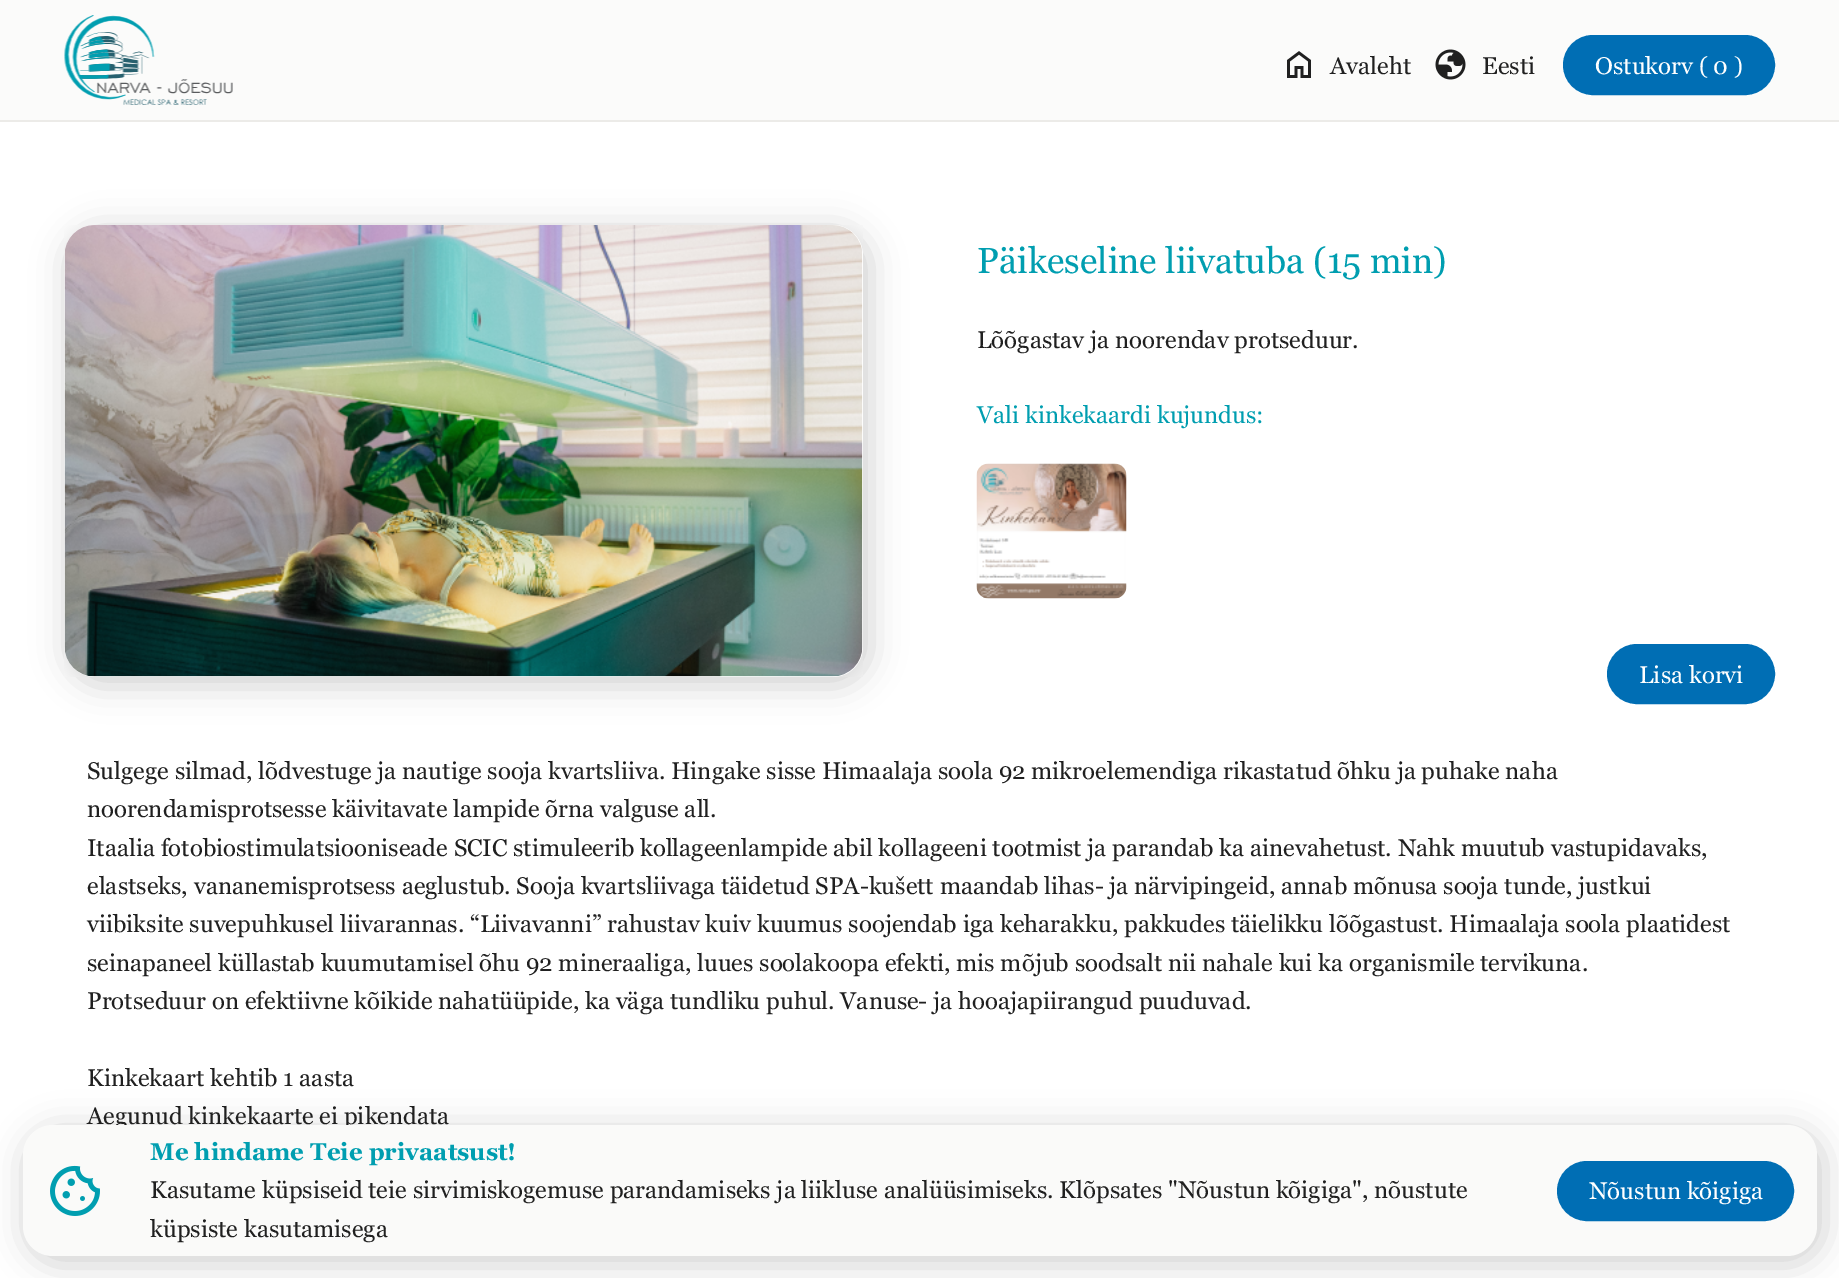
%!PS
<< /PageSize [1839 1278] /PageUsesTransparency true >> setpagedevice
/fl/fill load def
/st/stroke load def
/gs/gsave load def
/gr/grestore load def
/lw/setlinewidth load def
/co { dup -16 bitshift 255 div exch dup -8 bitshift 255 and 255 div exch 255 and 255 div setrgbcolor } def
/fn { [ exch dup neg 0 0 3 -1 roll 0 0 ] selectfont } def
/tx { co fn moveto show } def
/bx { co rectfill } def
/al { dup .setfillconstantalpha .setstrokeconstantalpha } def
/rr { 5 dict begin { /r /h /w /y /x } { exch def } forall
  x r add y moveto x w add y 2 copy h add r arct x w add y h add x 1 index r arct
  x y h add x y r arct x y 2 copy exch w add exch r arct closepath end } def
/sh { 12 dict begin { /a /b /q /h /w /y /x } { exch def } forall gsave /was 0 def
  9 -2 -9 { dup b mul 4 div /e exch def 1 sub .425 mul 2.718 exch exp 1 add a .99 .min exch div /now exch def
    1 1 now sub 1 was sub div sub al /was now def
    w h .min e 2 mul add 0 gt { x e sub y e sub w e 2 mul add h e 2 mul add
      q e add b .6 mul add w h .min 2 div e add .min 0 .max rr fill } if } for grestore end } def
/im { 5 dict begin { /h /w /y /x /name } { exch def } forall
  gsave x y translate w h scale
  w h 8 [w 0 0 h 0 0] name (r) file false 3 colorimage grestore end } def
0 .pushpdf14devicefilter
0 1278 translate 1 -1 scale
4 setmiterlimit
0 0 1839 1278 16#FFFFFF bx
0 0 1839 120 16#FBFBFA bx
0 120 1839 2 16#ECEBE8 bx
(media/1.raw) 64 15 169 90 im
(media/2.raw) 1287 51 24 27 im
(media/3.raw) 1435 49 31 31 im
16#006EB4 co
1564 36 210 58 29 rr gs fl gr
2 lw
st
16#686868 co
65 227 807 460 35 16.5 .28 sh
16#FFFFFF co
65 225 798 452 30 rr fl
(media/4.raw) 64 225 799 452 im
(media/5.raw) 976 463 151 136 im
16#006EB4 co
1608 645 166 58 29 rr gs fl gr
st
16#686868 co
23 1127 1803 139 35 16.5 .28 sh
(Avaleht) 1330 74 /Georgia-Regular 24 16#202020 tx
(Eesti) 1482 74 /Georgia-Regular 24 16#202020 tx
(Ostukorv \( 0 \)) 1595 74 /Georgia-Regular 24 16#FFFFFF tx
(Päikeseline liivatuba \(15 min\)) 977 273 /Georgia-Regular 36 16#009EB0 tx
(Lõõgastav ja noorendav protseduur.) 977 348 /Georgia-Regular 24 16#202020 tx
(Vali kinkekaardi kujundus:) 977 423 /Georgia-Regular 24 16#009EB0 tx
(Lisa korvi) 1639 683 /Georgia-Regular 24 16#FFFFFF tx
(Sulgege silmad, lõdvestuge ja nautige sooja kvartsliiva. Hingake sisse Himaalaja soola 92 mikroelemendiga rikastatud õhku ja puhake naha) 87 779 /Georgia-Regular 24 16#202020 tx
(noorendamisprotsesse käivitavate lampide õrna valguse all.) 87 817 /Georgia-Regular 24 16#202020 tx
(Itaalia fotobiostimulatsiooniseade SCIC stimuleerib kollageenlampide abil kollageeni tootmist ja parandab ka ainevahetust. Nahk muutub vastupidavaks,) 87 856 /Georgia-Regular 24 16#202020 tx
(elastseks, vananemisprotsess aeglustub. Sooja kvartsliivaga täidetud SPA-kušett maandab lihas- ja närvipingeid, annab mõnusa sooja tunde, justkui) 87 894 /Georgia-Regular 24 16#202020 tx
(viibiksite suvepuhkusel liivarannas. “Liivavanni” rahustav kuiv kuumus soojendab iga keharakku, pakkudes täielikku lõõgastust. Himaalaja soola plaatidest) 87 932 /Georgia-Regular 24 16#202020 tx
(seinapaneel küllastab kuumutamisel õhu 92 mineraaliga, luues soolakoopa efekti, mis mõjub soodsalt nii nahale kui ka organismile tervikuna.) 87 971 /Georgia-Regular 24 16#202020 tx
(Protseduur on efektiivne kõikide nahatüüpide, ka väga tundliku puhul. Vanuse- ja hooajapiirangud puuduvad.) 87 1009 /Georgia-Regular 24 16#202020 tx
(Kinkekaart kehtib 1 aasta) 87 1086 /Georgia-Regular 24 16#202020 tx
(Aegunud kinkekaarte ei pikendata) 87 1124 /Georgia-Regular 24 16#202020 tx
16#FAFAF9 co
23 1125 1794 131 30 rr fl
(media/6.raw) 50 1165 50 51 im
(Me hindame Teie privaatsust!) 150 1160 /Georgia-Bold 24 16#009EB0 tx
(Kasutame küpsiseid teie sirvimiskogemuse parandamiseks ja liikluse analüüsimiseks. Klõpsates "Nõustun kõigiga", nõustute) 150 1198 /Georgia-Regular 24 16#202020 tx
(küpsiste kasutamisega) 150 1237 /Georgia-Regular 24 16#202020 tx
16#006EB4 co
1558 1162 235 58 29 rr gs fl gr
st
(Nõustun kõigiga) 1589 1199 /Georgia-Regular 24 16#FFFFFF tx
.poppdf14devicefilter showpage
